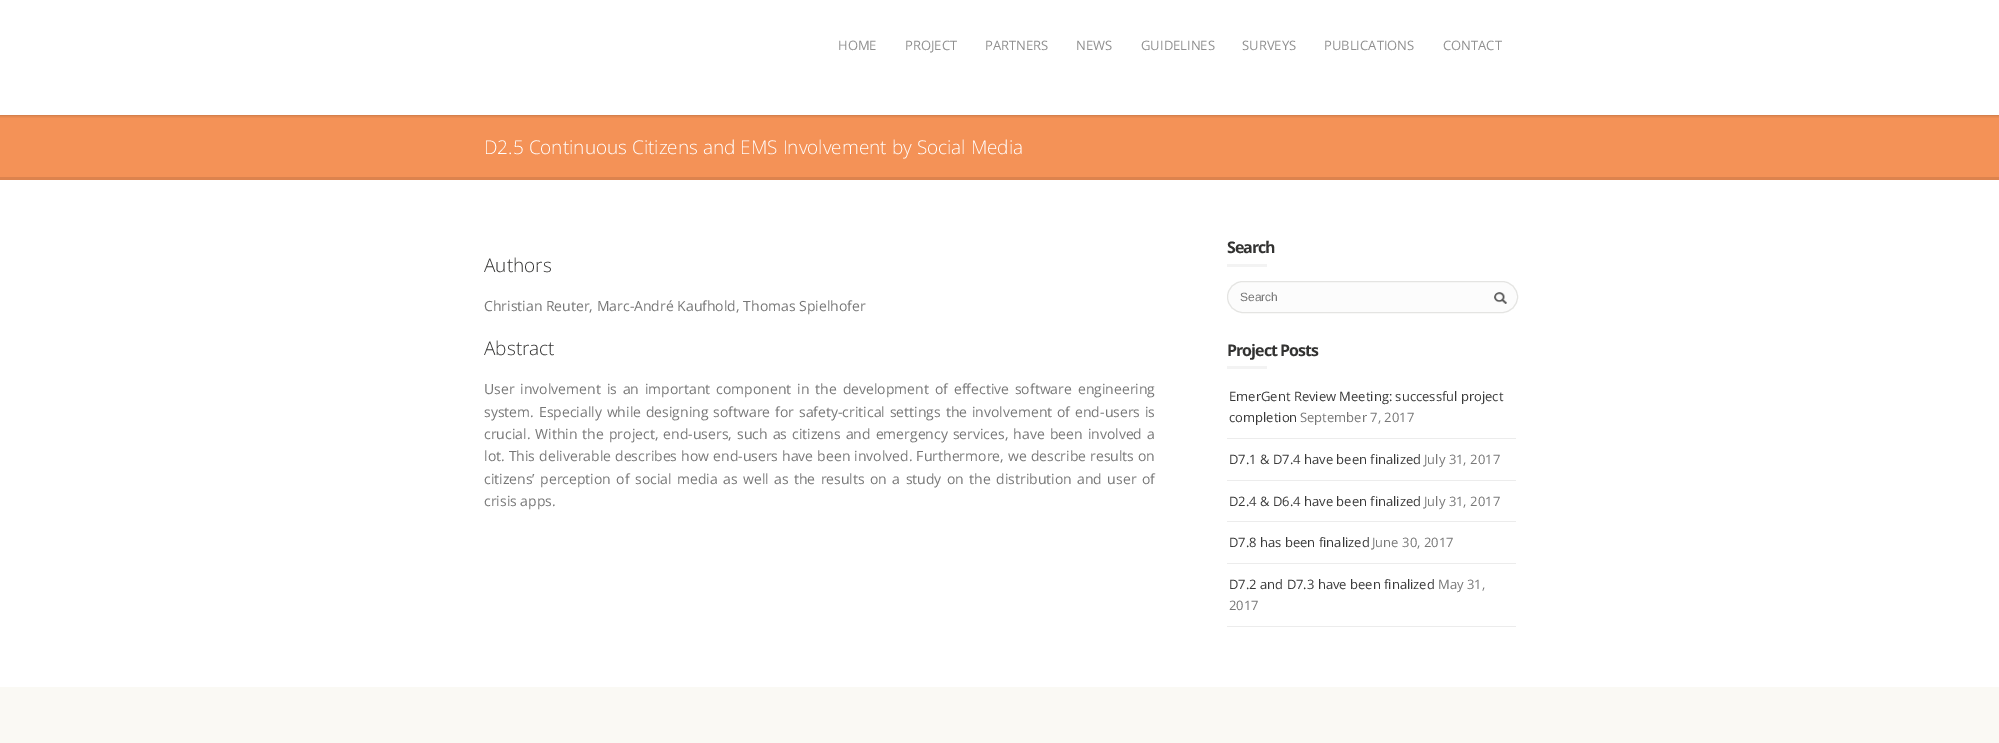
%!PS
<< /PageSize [1999 743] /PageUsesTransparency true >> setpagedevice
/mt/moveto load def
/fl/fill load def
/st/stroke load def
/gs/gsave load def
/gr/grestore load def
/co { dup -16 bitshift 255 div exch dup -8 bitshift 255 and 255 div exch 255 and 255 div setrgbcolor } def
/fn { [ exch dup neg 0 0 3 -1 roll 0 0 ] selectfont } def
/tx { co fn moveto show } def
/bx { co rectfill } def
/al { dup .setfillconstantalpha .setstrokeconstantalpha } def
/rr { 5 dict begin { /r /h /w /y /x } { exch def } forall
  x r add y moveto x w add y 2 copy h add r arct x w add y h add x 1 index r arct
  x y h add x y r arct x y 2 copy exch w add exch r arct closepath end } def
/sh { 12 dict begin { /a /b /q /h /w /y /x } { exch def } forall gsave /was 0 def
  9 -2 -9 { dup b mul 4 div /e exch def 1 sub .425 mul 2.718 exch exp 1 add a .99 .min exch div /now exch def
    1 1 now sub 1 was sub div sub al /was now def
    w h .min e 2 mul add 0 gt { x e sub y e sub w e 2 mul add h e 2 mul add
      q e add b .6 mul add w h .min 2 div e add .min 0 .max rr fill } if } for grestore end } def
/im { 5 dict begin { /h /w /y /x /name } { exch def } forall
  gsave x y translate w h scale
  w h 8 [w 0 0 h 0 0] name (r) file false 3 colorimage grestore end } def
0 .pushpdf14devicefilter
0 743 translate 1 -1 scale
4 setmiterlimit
0 0 1999 743 16#FFFFFF bx
0 115 1999 62 16#F49257 bx
gs
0 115 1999 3 rectclip
16#000000 co
0 0 1999 115 0 2 .3 sh
gr
0 177 1999 3 16#DC834E bx
1227 264 40 3 16#F3F3F3 bx
16#FCFCFC co
1227.5 281.5 290 31 15.5 rr gs fl gr
16#E4E4E2 co
st
(media/1.raw) 1494 292 13 12 im
1227 366 40 3 16#F3F3F3 bx
1227 438 289 1 16#ECECEC bx
1227 480 289 1 16#ECECEC bx
1227 521 289 1 16#ECECEC bx
1227 563 289 1 16#ECECEC bx
1227 626 289 1 16#ECECEC bx
0 687 1999 56 16#FAF9F4 bx
(HOME) 838 50 /OpenSans-Regular 13 16#8F8F8F tx
(PROJECT) 905 50 /OpenSans-Regular 13 16#8F8F8F tx
(PARTNERS) 985 50 /OpenSans-Regular 13 16#8F8F8F tx
(NEWS) 1076 50 /OpenSans-Regular 13 16#8F8F8F tx
(GUIDELINES) 1141 50 /OpenSans-Regular 13 16#8F8F8F tx
(SURVEYS) 1242 50 /OpenSans-Regular 13 16#8F8F8F tx
(PUBLICATIONS) 1324 50 /OpenSans-Regular 13 16#8F8F8F tx
(CONTACT) 1443 50 /OpenSans-Regular 13 16#8F8F8F tx
(D2.5 Continuous Citizens and EMS Involvement by Social Media) 484 154 /OpenSans-Light 19 16#FFFFFF tx
(Authors) 484 272 /OpenSans-Light 19 16#333332 tx
(Christian Reuter, Marc-André Kaufhold, Thomas Spielhofer) 484 311 /OpenSans-Regular 14 16#777777 tx
(Abstract) 484 355 /OpenSans-Light 19 16#333332 tx
/OpenSans-Regular 14 fn
16#777777 co
484 394 mt 2.25 0 32 (User involvement is an important component in the development of effective software engineering) widthshow
484 417 mt 1.25 0 32 (system. Especially while designing software for safety-critical settings the involvement of end-users is) widthshow
484 439 mt 1.4 0 32 (crucial. Within the project, end-users, such as citizens and emergency services, have been involved a) widthshow
484 461 mt .4 0 32 (lot. This deliverable describes how end-users have been involved. Furthermore, we describe results on) widthshow
484 484 mt 1.75 0 32 (citizens’ perception of social media as well as the results on a study on the distribution and user of) widthshow
(crisis apps.) 484 506 /OpenSans-Regular 14 16#777777 tx
/OpenSans-Bold 16 fn
16#333332 co
1227 253 mt -1 0 (Search) ashow
(Search) 1240 301 /LiberationSans-Regular 12 16#777777 tx
/OpenSans-Bold 16 fn
16#333332 co
1227 356 mt -1 0 (Project Posts) ashow
(EmerGent Review Meeting: successful project) 1229 401 /OpenSans-Regular 13 16#383838 tx
(completion) 1229 422 /OpenSans-Regular 13 16#383838 tx
(September 7, 2017) 1300 422 /OpenSans-Regular 13 16#777777 tx
(D7.1 & D7.4 have been finalized) 1229 464 /OpenSans-Regular 13 16#383838 tx
(July 31, 2017) 1424 464 /OpenSans-Regular 13 16#777777 tx
(D2.4 & D6.4 have been finalized) 1229 506 /OpenSans-Regular 13 16#383838 tx
(July 31, 2017) 1424 506 /OpenSans-Regular 13 16#777777 tx
(D7.8 has been finalized) 1229 547 /OpenSans-Regular 13 16#383838 tx
(June 30, 2017) 1372 547 /OpenSans-Regular 13 16#777777 tx
(D7.2 and D7.3 have been finalized) 1229 589 /OpenSans-Regular 13 16#383838 tx
(May 31,) 1438 589 /OpenSans-Regular 13 16#777777 tx
(2017) 1229 610 /OpenSans-Regular 13 16#777777 tx
.poppdf14devicefilter showpage
